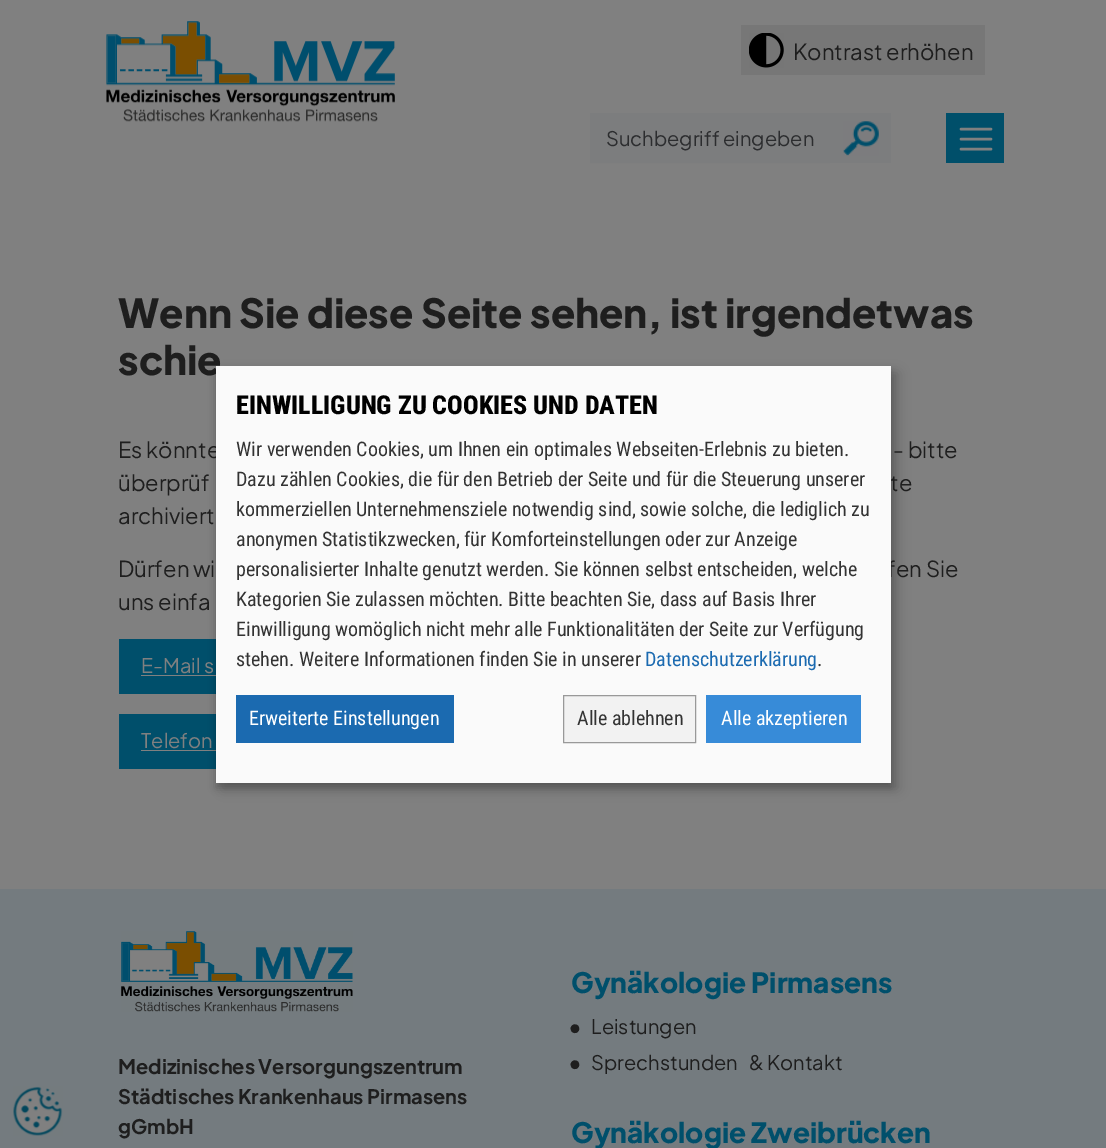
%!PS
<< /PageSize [1106 1148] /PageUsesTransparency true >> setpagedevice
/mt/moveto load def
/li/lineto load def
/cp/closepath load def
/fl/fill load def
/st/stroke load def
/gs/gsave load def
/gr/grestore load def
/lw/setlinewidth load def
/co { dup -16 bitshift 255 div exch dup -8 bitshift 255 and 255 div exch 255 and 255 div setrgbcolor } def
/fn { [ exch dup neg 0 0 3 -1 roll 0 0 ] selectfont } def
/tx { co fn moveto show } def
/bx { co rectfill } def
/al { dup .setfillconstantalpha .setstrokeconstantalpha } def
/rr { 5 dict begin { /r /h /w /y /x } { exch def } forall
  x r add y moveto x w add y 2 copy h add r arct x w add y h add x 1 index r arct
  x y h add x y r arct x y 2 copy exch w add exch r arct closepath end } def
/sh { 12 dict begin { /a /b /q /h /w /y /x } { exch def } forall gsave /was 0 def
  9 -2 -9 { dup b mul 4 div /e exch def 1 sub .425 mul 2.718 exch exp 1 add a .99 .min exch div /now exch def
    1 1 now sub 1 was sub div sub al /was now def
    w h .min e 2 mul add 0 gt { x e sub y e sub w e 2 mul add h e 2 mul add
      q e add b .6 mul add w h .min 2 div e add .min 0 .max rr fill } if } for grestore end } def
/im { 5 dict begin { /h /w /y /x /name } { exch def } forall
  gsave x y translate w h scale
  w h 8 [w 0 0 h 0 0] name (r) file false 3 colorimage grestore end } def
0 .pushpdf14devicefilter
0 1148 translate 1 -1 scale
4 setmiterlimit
0 0 1106 1148 16#808080 bx
(media/1.raw) 106 21 289 101 im
741 25 244 50 16#777777 bx
(media/2.raw) 749 33 35 35 im
591 113 300 50 16#7C7D7E bx
590.5 113.5 239 49 rectstroke
(media/3.raw) 843 121 36 35 im
946 113 58 50 16#004F6A bx
16#808080 co
2.5 lw
1 setlinecap
961 129 mt 991 129 li 961 139 mt 991 139 li 961 149 mt 991 149 li st
119 639 97 55 16#004F6B bx
141 675 75 1 16#808080 bx
119 714 97 55 16#004F6B bx
141 750 75 1 16#808080 bx
0 889 1106 259 16#747B7F bx
(media/4.raw) 13 1086 50 50 im
(media/5.raw) 121 931 232 81 im
16#000000 co
223 373 675 416 0 6 .19 sh
216 371 675 417 0 4 .2 sh
(Kontrast erhöhen) 793 60 /PlusJakartaSans-Regular 22 16#1E1E1E tx
(Suchbegriff eingeben) 606 146 /PlusJakartaSans-Regular 20 16#2C2D2F tx
(Wenn Sie diese Seite sehen, ist irgendetwas) 118 328 /PlusJakartaSans-ExtraBold 40 16#1E1E1E tx
(schie) 118 375 /PlusJakartaSans-ExtraBold 40 16#1E1E1E tx
(Es könnte) 118 458 /PlusJakartaSans-Regular 22 16#1E1E1E tx
(- bitte) 893 458 /PlusJakartaSans-Regular 22 16#1E1E1E tx
(überprüf) 118 491 /PlusJakartaSans-Regular 22 16#1E1E1E tx
(te) 890 491 /PlusJakartaSans-Regular 22 16#1E1E1E tx
(archiviert) 118 524 /PlusJakartaSans-Regular 22 16#1E1E1E tx
(Dürfen wi) 118 577 /PlusJakartaSans-Regular 22 16#1E1E1E tx
(fen Sie) 887 577 /PlusJakartaSans-Regular 22 16#1E1E1E tx
(uns einfa) 118 610 /PlusJakartaSans-Regular 22 16#1E1E1E tx
(E-Mail s) 141 673 /PlusJakartaSans-Regular 20 16#808080 tx
141 748 mt -1 0 32 (Telefon) widthshow
(Medizinisches Versorgungszentrum) 118 1074 /PlusJakartaSans-Bold 20 16#1E1E1E tx
(Städtisches Krankenhaus Pirmasens) 118 1104 /PlusJakartaSans-Bold 20 16#1E1E1E tx
(gGmbH) 118 1134 /PlusJakartaSans-Bold 20 16#1E1E1E tx
(Gynäkologie Pirmasens) 571 993 /PlusJakartaSans-ExtraBold 28 16#004F6B tx
(•) 568 1034 /PlusJakartaSans-ExtraBold 20 16#1E1E1E tx
(Leistungen) 591 1034 /PlusJakartaSans-Regular 20 16#1E1E1E tx
(•) 568 1070 /PlusJakartaSans-ExtraBold 20 16#1E1E1E tx
(Sprechstunden) 591 1070 /PlusJakartaSans-Regular 20 16#1E1E1E tx
(& Kontakt) 749 1070 /PlusJakartaSans-Regular 20 16#1E1E1E tx
(Gynäkologie Zweibrücken) 571 1143 /PlusJakartaSans-ExtraBold 28 16#004F6B tx
216 366 675 417 16#FAFAFA bx
(EINWILLIGUNG ZU COOKIES UND DATEN) 236 414 /RobotoCondensed-ExtraBold 26 16#000000 tx
(Wir verwenden Cookies, um Ihnen ein optimales Webseiten-Erlebnis zu bieten.) 236 456 /RobotoCondensed-Regular 20 16#333333 tx
(Dazu zählen Cookies, die für den Betrieb der Seite und für die Steuerung unserer) 236 486 /RobotoCondensed-Regular 20 16#333333 tx
(kommerziellen Unternehmensziele notwendig sind, sowie solche, die lediglich zu) 236 516 /RobotoCondensed-Regular 20 16#333333 tx
(anonymen Statistikzwecken, für Komforteinstellungen oder zur Anzeige) 236 546 /RobotoCondensed-Regular 20 16#333333 tx
(personalisierter Inhalte genutzt werden. Sie können selbst entscheiden, welche) 236 576 /RobotoCondensed-Regular 20 16#333333 tx
(Kategorien Sie zulassen möchten. Bitte beachten Sie, dass auf Basis Ihrer) 236 606 /RobotoCondensed-Regular 20 16#333333 tx
(Einwilligung womöglich nicht mehr alle Funktionalitäten der Seite zur Verfügung) 236 636 /RobotoCondensed-Regular 20 16#333333 tx
(stehen. Weitere Informationen finden Sie in unserer) 236 666 /RobotoCondensed-Regular 20 16#333333 tx
(Datenschutzerklärung) 645 666 /RobotoCondensed-Regular 20 16#1B6AB0 tx
(.) 817 666 /RobotoCondensed-Regular 20 16#333333 tx
236 695 218 48 16#1B6AB0 bx
(Erweiterte Einstellungen) 249 725 /RobotoCondensed-Regular 20 16#FFFFFF tx
16#F2F2F2 co
563.5 695.5 mt 695.5 695.5 li 695.5 742.5 li 563.5 742.5 li cp gs fl gr
16#999999 co
1 lw
0 setlinecap
st
(Alle ablehnen) 577 725 /RobotoCondensed-Regular 20 16#333333 tx
706 695 155 48 16#378BD8 bx
(Alle akzeptieren) 721 725 /RobotoCondensed-Regular 20 16#FFFFFF tx
.poppdf14devicefilter showpage
